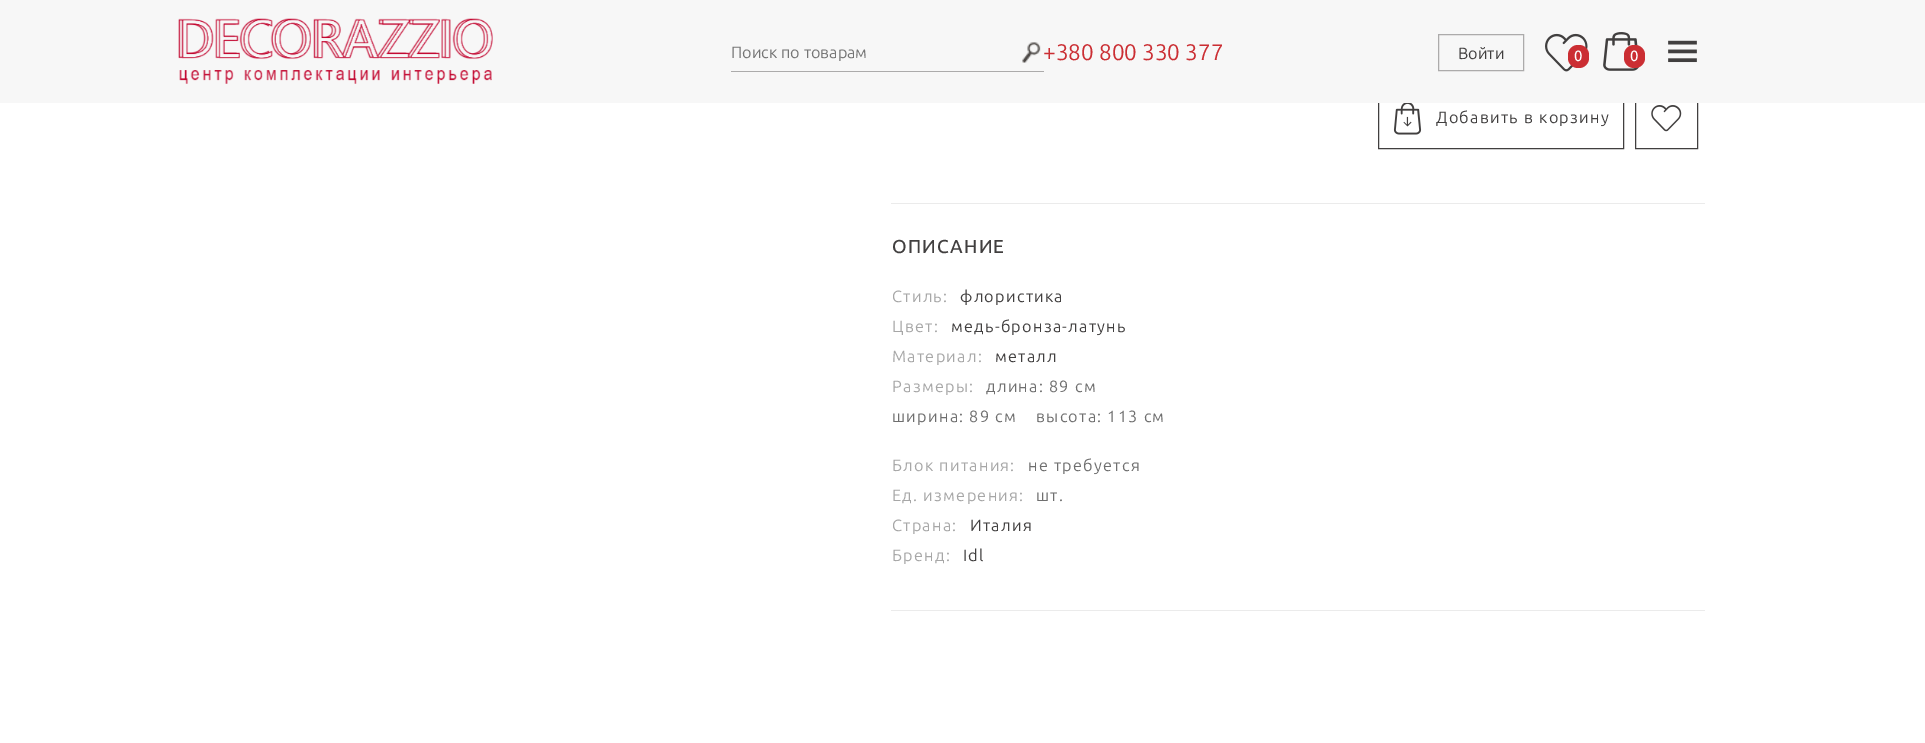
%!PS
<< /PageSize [1925 743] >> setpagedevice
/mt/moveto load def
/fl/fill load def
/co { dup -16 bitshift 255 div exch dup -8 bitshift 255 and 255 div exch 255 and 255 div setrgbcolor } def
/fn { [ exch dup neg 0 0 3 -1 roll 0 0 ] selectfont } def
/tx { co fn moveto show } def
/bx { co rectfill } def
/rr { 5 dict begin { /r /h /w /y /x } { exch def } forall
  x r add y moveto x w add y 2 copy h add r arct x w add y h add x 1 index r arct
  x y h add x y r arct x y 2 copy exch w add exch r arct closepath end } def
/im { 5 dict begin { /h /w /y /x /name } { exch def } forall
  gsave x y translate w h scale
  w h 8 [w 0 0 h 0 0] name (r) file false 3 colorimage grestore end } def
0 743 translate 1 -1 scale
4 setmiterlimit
0 0 1925 743 16#FFFFFF bx
16#413F3F co
1378.5 86.5 245 62 rectstroke
1635.5 86.5 62 62 rectstroke
0 0 1925 103 16#F7F7F7 bx
(media/1.raw) 178 18 315 66 im
731 71 313 1 16#ACABAB bx
(media/2.raw) 1022 42 19 21 im
1438.5 34.5 85 36 rectstroke
(media/3.raw) 1545 33 43 39 im
16#CB2E33 co
1568 45 21 23 10 rr fl
(media/4.raw) 1603 32 37 39 im
1624 45 21 23 10 rr fl
(media/5.raw) 1668 40 29 23 im
(media/6.raw) 1393 103 29 32 im
(media/7.raw) 1651 105 31 27 im
891 203 814 1 16#EBEBEB bx
891 610 814 1 16#EBEBEB bx
(Поиск по товарам) 731 58 /Ubuntu-Regular 16.25 16#757575 tx
(+380 800 330 377) 1043 60 /Ubuntu-Regular 22.5 16#CB2E33 tx
(Войти) 1458 59 /Ubuntu-Regular 16.25 16#413F3F tx
(0) 1574 61 /Ubuntu-Medium 15 16#FFFFFF tx
(0) 1630 61 /Ubuntu-Medium 15 16#FFFFFF tx
/Ubuntu-Regular 16.25 fn
16#413F3F co
1436 123 mt 1.25 0 (Добавить в корзину) ashow
/Ubuntu-Medium 18.75 fn
892 253 mt 1.25 0 (ОПИСАНИЕ) ashow
/Ubuntu-Regular 16.25 fn
16#A7A7A7 co
892 302 mt 1.25 0 (Стиль:) ashow
16#413F3F co
960 302 mt 1.25 0 (флористика) ashow
16#A7A7A7 co
892 332 mt 1.25 0 (Цвет:) ashow
16#413F3F co
951 332 mt 1.25 0 (медь-бронза-латунь) ashow
16#A7A7A7 co
892 362 mt 1.25 0 (Материал:) ashow
16#413F3F co
995 362 mt 1.25 0 (металл) ashow
16#A7A7A7 co
892 392 mt 1.25 0 (Размеры:) ashow
16#6F6F6F co
986 392 mt 1.25 0 (длина: 89 см) ashow
892 422 mt 1.25 0 (ширина: 89 см) ashow
1036 422 mt 1.25 0 (высота: 113 см) ashow
16#A7A7A7 co
892 471 mt 1.25 0 (Блок питания:) ashow
16#6F6F6F co
1028 471 mt 1.25 0 (не требуется) ashow
16#A7A7A7 co
892 501 mt 1.25 0 (Ед. измерения:) ashow
16#6F6F6F co
1036 501 mt 1.25 0 (шт.) ashow
16#A7A7A7 co
892 531 mt 1.25 0 (Страна:) ashow
16#413F3F co
970 531 mt 1.25 0 (Италия) ashow
16#A7A7A7 co
892 561 mt 1.25 0 (Бренд:) ashow
16#413F3F co
963 561 mt 1.25 0 (Idl) ashow
showpage
